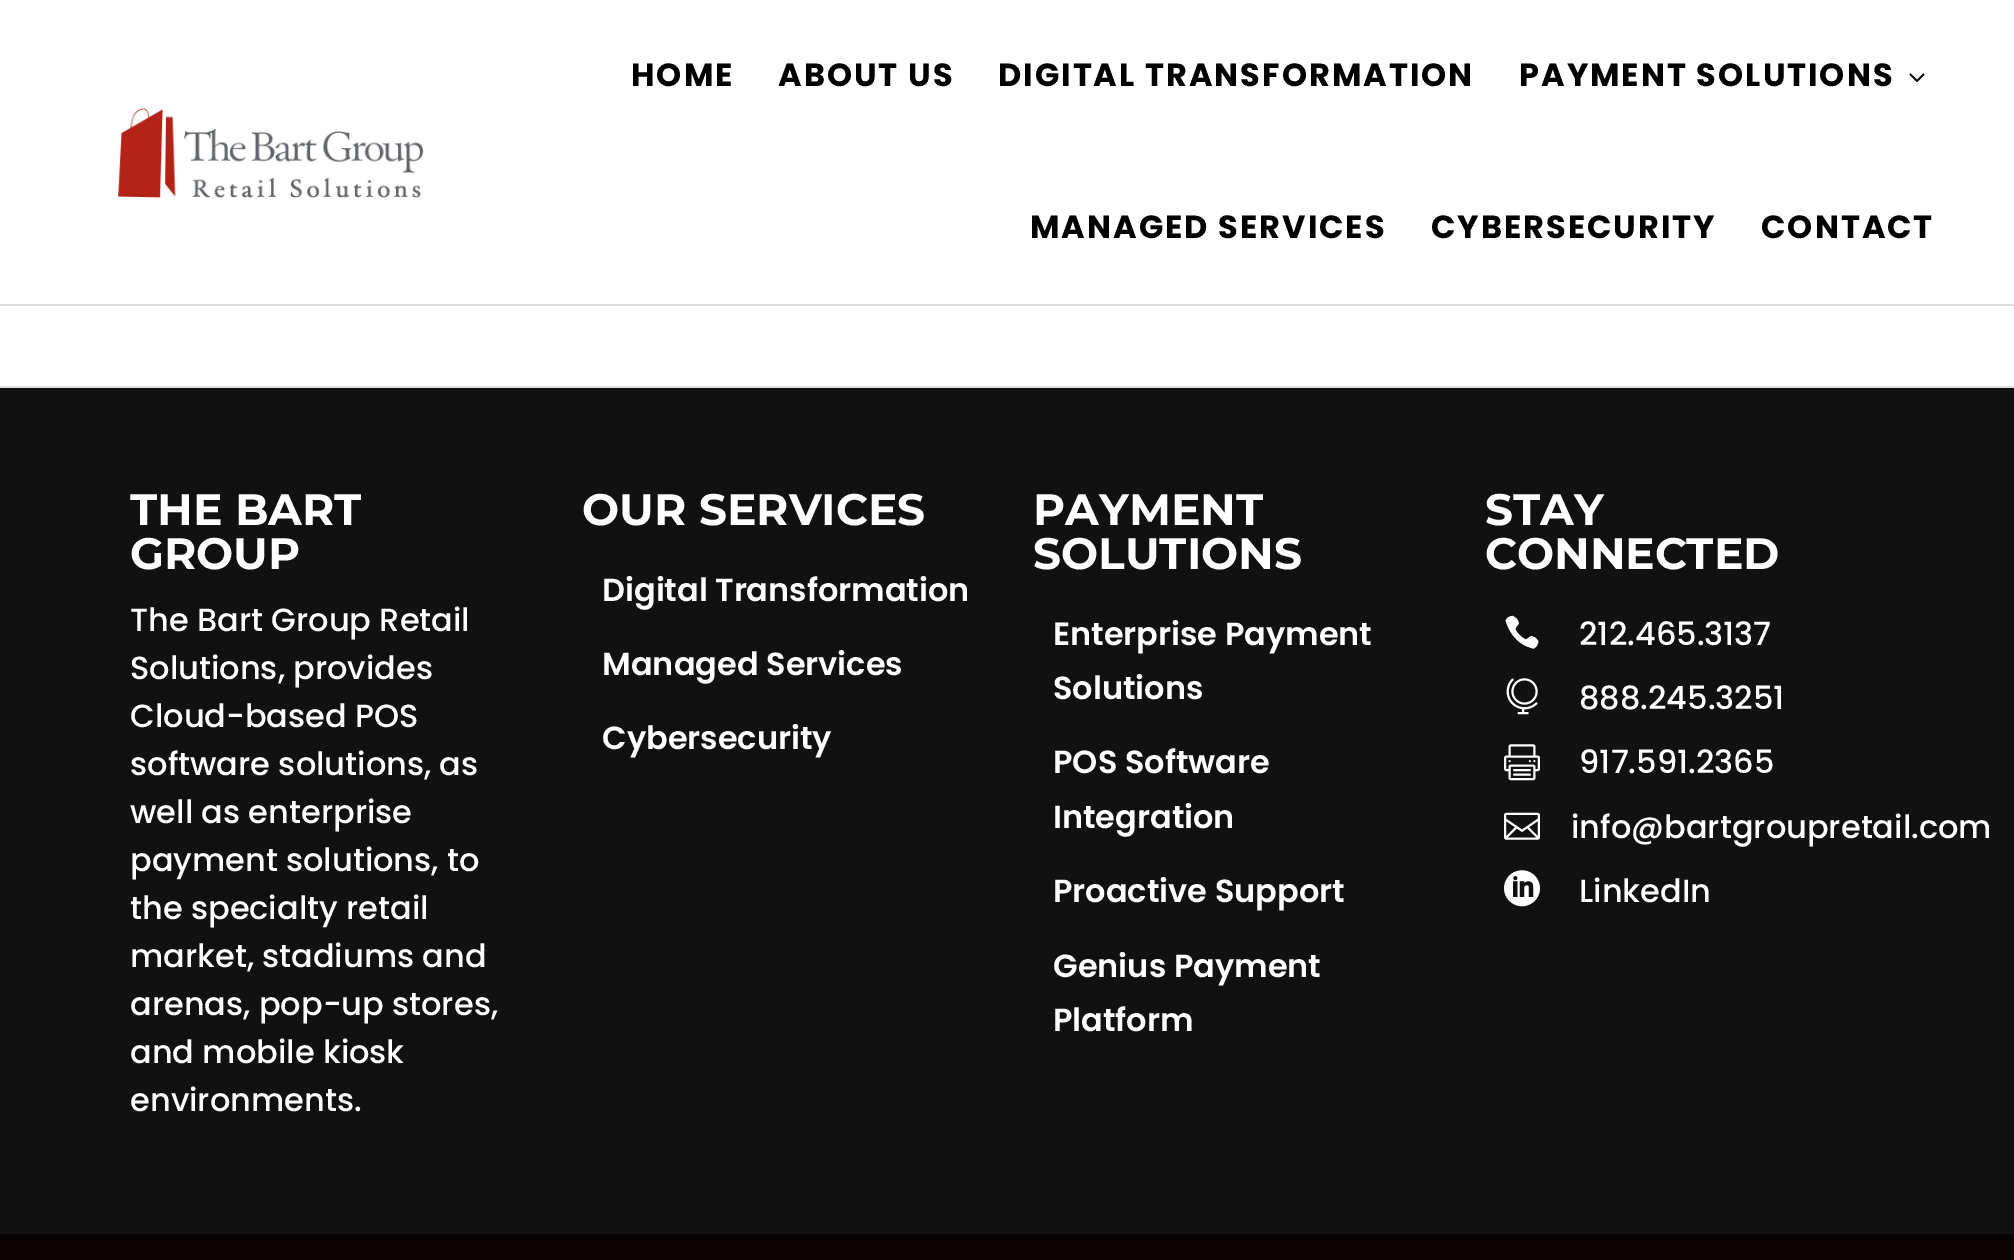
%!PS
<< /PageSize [2014 1260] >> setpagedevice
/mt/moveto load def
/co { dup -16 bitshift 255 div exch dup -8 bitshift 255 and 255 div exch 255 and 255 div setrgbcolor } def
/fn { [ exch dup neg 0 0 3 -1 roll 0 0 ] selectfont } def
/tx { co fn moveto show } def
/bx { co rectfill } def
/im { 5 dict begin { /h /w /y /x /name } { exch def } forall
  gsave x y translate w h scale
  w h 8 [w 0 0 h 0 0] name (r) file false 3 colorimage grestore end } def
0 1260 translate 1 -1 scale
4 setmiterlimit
0 0 2014 1260 16#FFFFFF bx
0 304 2014 2 16#DDDDDD bx
(media/1.raw) 118 108 306 90 im
(media/2.raw) 1909 73 16 9 im
0 386 2014 2 16#DDDDDD bx
0 388 2014 846 16#111111 bx
(media/3.raw) 1505 615 34 34 im
(media/4.raw) 1506 678 32 37 im
(media/5.raw) 1504 744 36 37 im
(media/6.raw) 1504 812 36 28 im
(media/7.raw) 1504 870 36 37 im
0 1234 2014 26 16#0A0404 bx
/Poppins-Bold 32 fn
16#000000 co
631 86 mt 2 0 (HOME) ashow
778 86 mt 2 0 (ABOUT US) ashow
998 86 mt 2 0 (DIGITAL TRANSFORMATION) ashow
1519 86 mt 2 0 (PAYMENT SOLUTIONS) ashow
1030 238 mt 2 0 (MANAGED SERVICES) ashow
1431 238 mt 2 0 (CYBERSECURITY) ashow
1761 238 mt 2 0 (CONTACT) ashow
(THE BART) 130 525 /Montserrat-Bold 44 16#FFFFFF tx
(GROUP) 130 569 /Montserrat-Bold 44 16#FFFFFF tx
(The Bart Group Retail) 130 631 /Poppins-Medium 32 16#FFFFFF tx
(Solutions, provides) 130 679 /Poppins-Medium 32 16#FFFFFF tx
(Cloud-based POS) 130 727 /Poppins-Medium 32 16#FFFFFF tx
(software solutions, as) 130 775 /Poppins-Medium 32 16#FFFFFF tx
(well as enterprise) 130 823 /Poppins-Medium 32 16#FFFFFF tx
(payment solutions, to) 130 871 /Poppins-Medium 32 16#FFFFFF tx
(the specialty retail) 130 919 /Poppins-Medium 32 16#FFFFFF tx
(market, stadiums and) 130 967 /Poppins-Medium 32 16#FFFFFF tx
(arenas, pop-up stores,) 130 1015 /Poppins-Medium 32 16#FFFFFF tx
(and mobile kiosk) 130 1063 /Poppins-Medium 32 16#FFFFFF tx
(environments.) 130 1111 /Poppins-Medium 32 16#FFFFFF tx
(OUR SERVICES) 582 525 /Montserrat-Bold 44 16#FFFFFF tx
(Digital Transformation) 602 601 /Poppins-SemiBold 32 16#FFFFFF tx
(Managed Services) 602 675 /Poppins-SemiBold 32 16#FFFFFF tx
(Cybersecurity) 602 749 /Poppins-SemiBold 32 16#FFFFFF tx
(PAYMENT) 1033 525 /Montserrat-Bold 44 16#FFFFFF tx
(SOLUTIONS) 1033 569 /Montserrat-Bold 44 16#FFFFFF tx
(Enterprise Payment) 1053 645 /Poppins-SemiBold 32 16#FFFFFF tx
(Solutions) 1053 699 /Poppins-SemiBold 32 16#FFFFFF tx
(POS Software) 1053 773 /Poppins-SemiBold 32 16#FFFFFF tx
(Integration) 1053 828 /Poppins-SemiBold 32 16#FFFFFF tx
(Proactive Support) 1053 902 /Poppins-SemiBold 32 16#FFFFFF tx
(Genius Payment) 1053 977 /Poppins-SemiBold 32 16#FFFFFF tx
(Platform) 1053 1031 /Poppins-SemiBold 32 16#FFFFFF tx
(STAY) 1485 525 /Montserrat-Bold 44 16#FFFFFF tx
(CONNECTED) 1485 569 /Montserrat-Bold 44 16#FFFFFF tx
(212.465.3137) 1579 645 /Poppins-Medium 32 16#FFFFFF tx
(888.245.3251) 1579 709 /Poppins-Medium 32 16#FFFFFF tx
(917.591.2365) 1579 773 /Poppins-Medium 32 16#FFFFFF tx
(info@bartgroupretail.com) 1571 838 /Poppins-Medium 32 16#FFFFFF tx
(LinkedIn) 1579 902 /Poppins-Medium 32 16#FFFFFF tx
showpage
